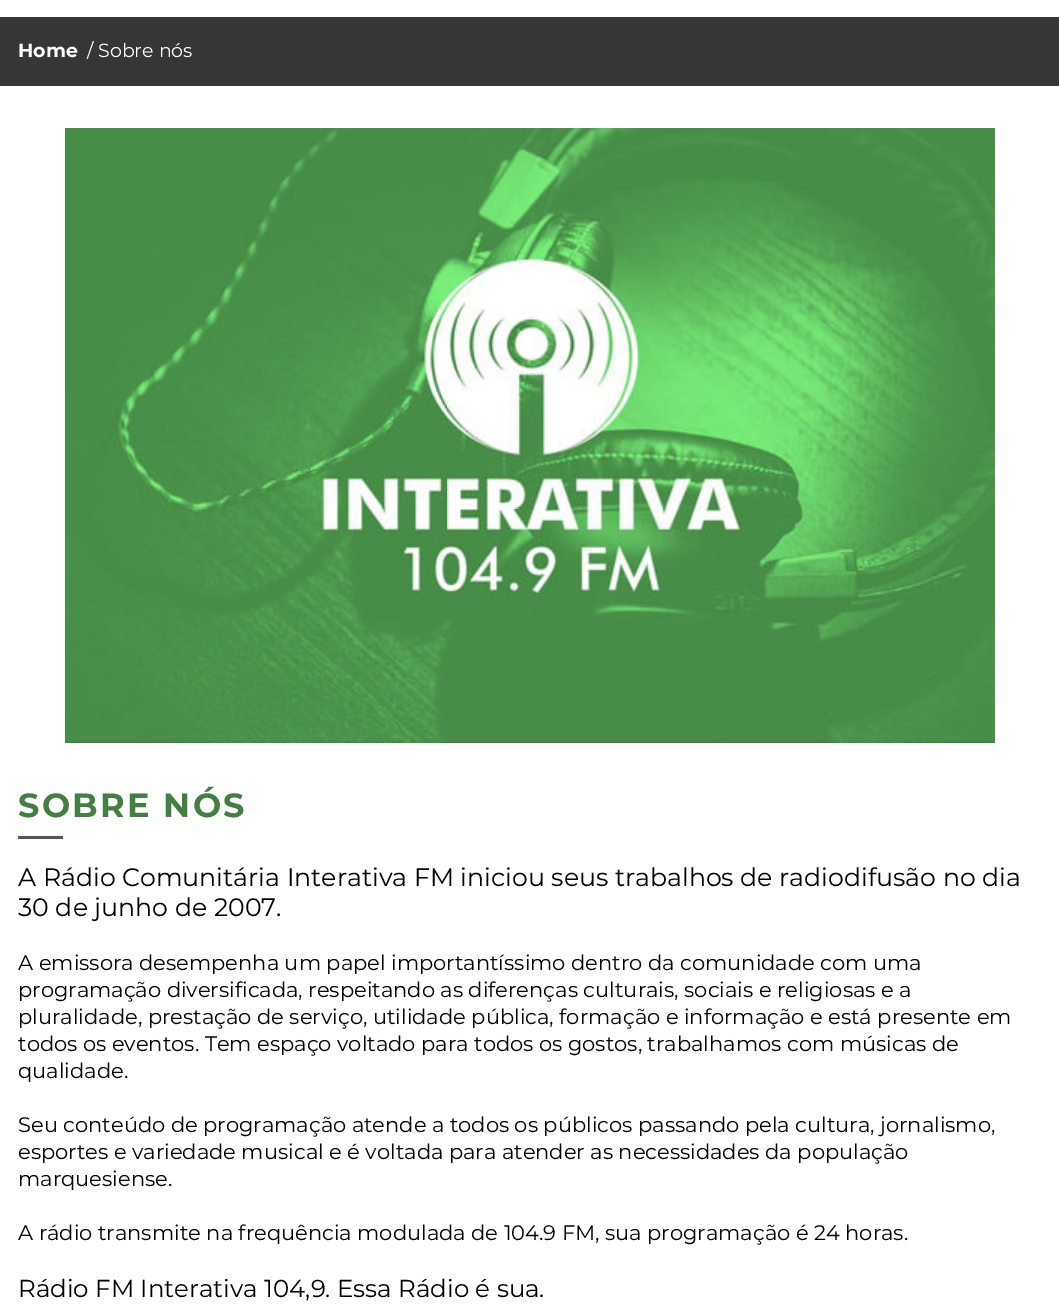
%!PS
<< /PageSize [1059 1314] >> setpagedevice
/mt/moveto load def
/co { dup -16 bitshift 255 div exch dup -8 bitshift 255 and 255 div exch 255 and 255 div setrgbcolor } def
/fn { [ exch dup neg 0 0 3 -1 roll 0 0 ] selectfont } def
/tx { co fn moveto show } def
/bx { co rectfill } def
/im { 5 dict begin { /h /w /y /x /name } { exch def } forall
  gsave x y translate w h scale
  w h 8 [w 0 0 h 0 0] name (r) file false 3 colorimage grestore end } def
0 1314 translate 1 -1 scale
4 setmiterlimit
0 0 1059 1314 16#FFFFFF bx
0 17 1059 69 16#363636 bx
(media/1.raw) 65 128 930 615 im
18 836 45 3 16#545554 bx
(Home) 18 57 /Montserrat-Bold 19 16#FFFFFF tx
(/) 87 57 /Montserrat-Regular 19 16#FFFFFF tx
(Sobre nós) 98 57 /Montserrat-Regular 19 16#FFFFFF tx
/Montserrat-Bold 33.5 fn
16#437F43 co
18 817 mt 2.25 0 (SOBRE NÓS) ashow
(A Rádio Comunitária Interativa FM iniciou seus trabalhos de radiodifusão no dia) 18 886 /Montserrat-Regular 25.2 16#000000 tx
(30 de junho de 2007.) 18 916 /Montserrat-Regular 25.2 16#000000 tx
(A emissora desempenha um papel importantíssimo dentro da comunidade com uma) 18 970 /Montserrat-Regular 21 16#000000 tx
(programação diversificada, respeitando as diferenças culturais, sociais e religiosas e a) 18 997 /Montserrat-Regular 21 16#000000 tx
(pluralidade, prestação de serviço, utilidade pública, formação e informação e está presente em) 18 1024 /Montserrat-Regular 21 16#000000 tx
(todos os eventos. Tem espaço voltado para todos os gostos, trabalhamos com músicas de) 18 1051 /Montserrat-Regular 21 16#000000 tx
(qualidade.) 18 1078 /Montserrat-Regular 21 16#000000 tx
(Seu conteúdo de programação atende a todos os públicos passando pela cultura, jornalismo,) 18 1132 /Montserrat-Regular 21 16#000000 tx
(esportes e variedade musical e é voltada para atender as necessidades da população) 18 1159 /Montserrat-Regular 21 16#000000 tx
(marquesiense.) 18 1186 /Montserrat-Regular 21 16#000000 tx
(A rádio transmite na frequência modulada de 104.9 FM, sua programação é 24 horas.) 18 1240 /Montserrat-Regular 21 16#000000 tx
(Rádio FM Interativa 104,9. Essa Rádio é sua.) 18 1297 /Montserrat-Regular 24.5 16#000000 tx
showpage
